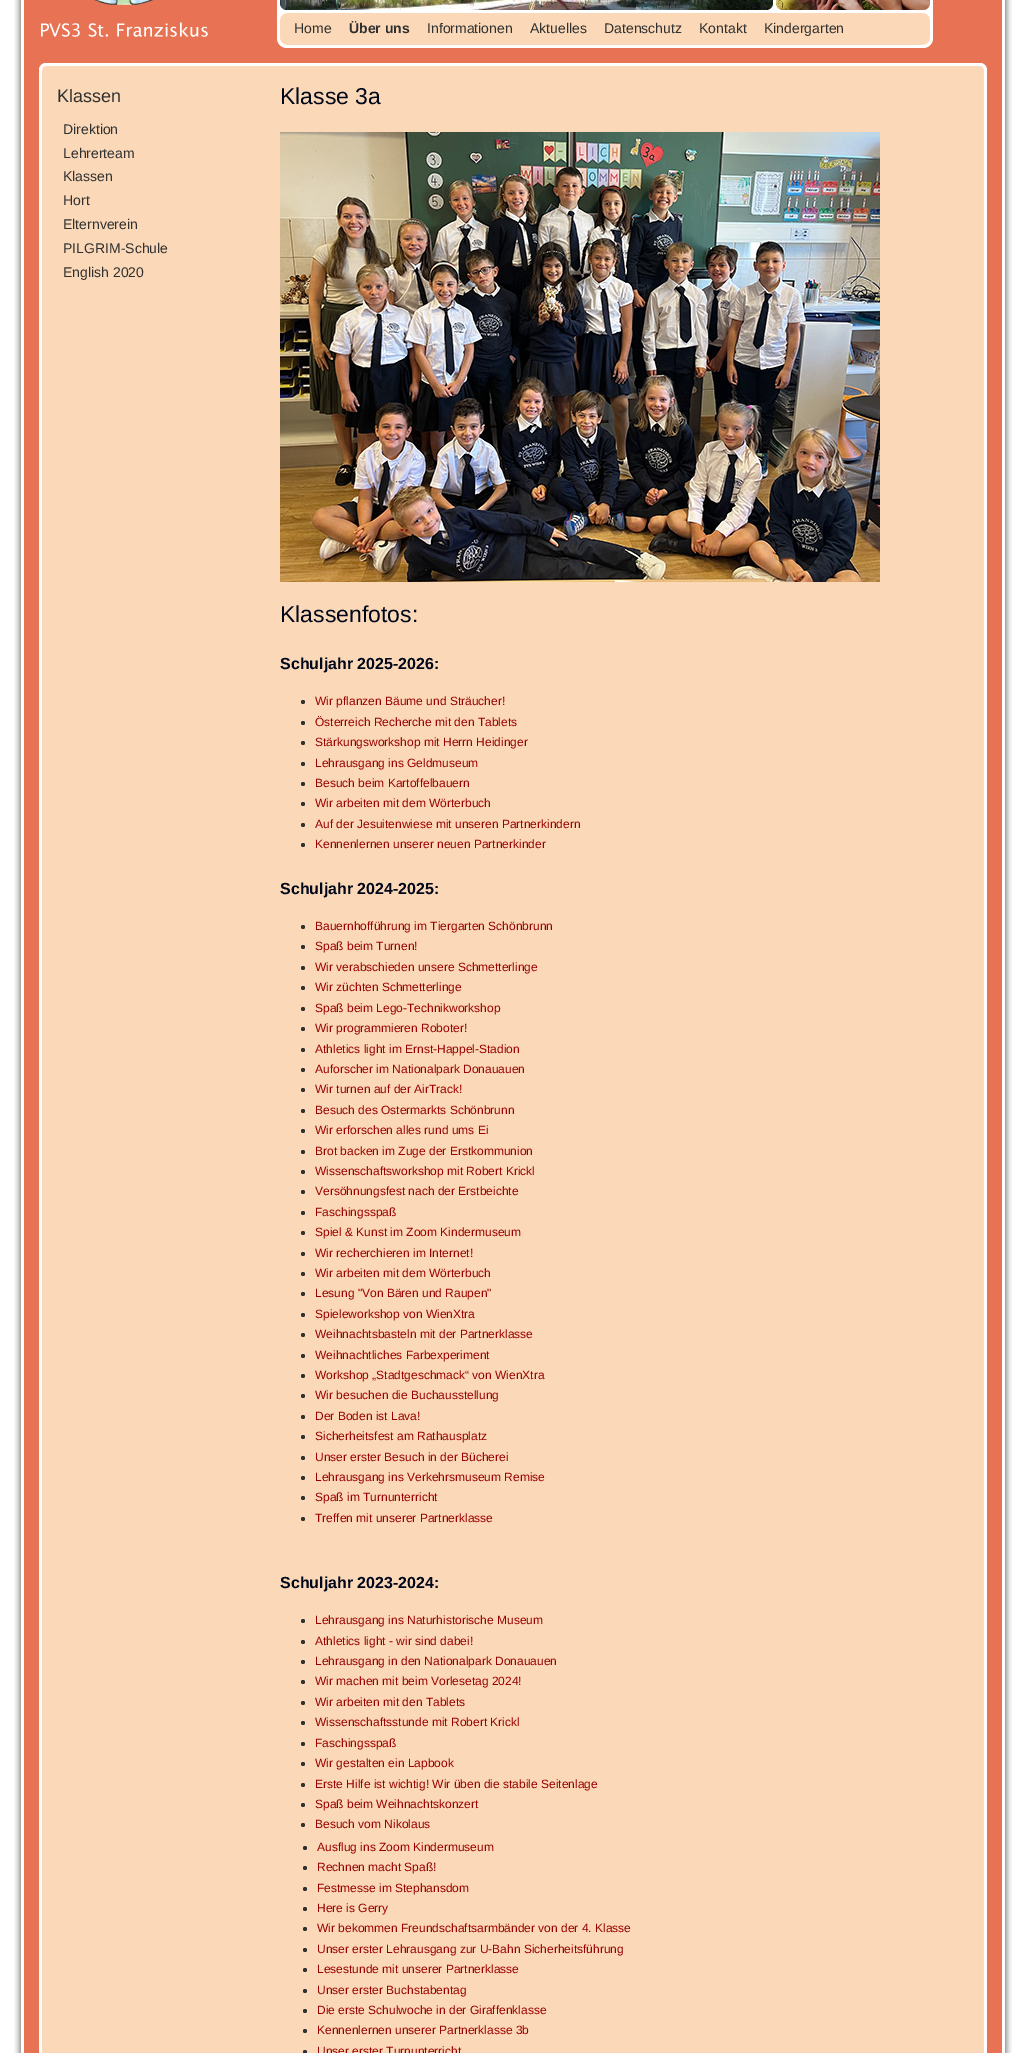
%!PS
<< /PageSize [1026 2053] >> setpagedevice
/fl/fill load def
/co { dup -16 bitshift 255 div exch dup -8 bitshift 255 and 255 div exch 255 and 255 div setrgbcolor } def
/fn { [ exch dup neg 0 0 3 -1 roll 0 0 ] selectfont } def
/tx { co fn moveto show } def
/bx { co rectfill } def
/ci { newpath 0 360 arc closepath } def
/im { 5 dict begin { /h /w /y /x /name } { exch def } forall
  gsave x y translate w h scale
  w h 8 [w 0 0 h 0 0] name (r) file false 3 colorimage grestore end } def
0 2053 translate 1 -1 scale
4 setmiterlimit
0 0 1026 2053 16#FFFFFF bx
(media/1.raw) 14 0 998 48 im
(media/2.raw) 14 48 998 15 im
(media/3.raw) 14 63 998 7 im
(media/4.raw) 14 70 998 1983 im
(media/5.raw) 280 132 600 450 im
16#303030 co
303 702 2 ci fl
303 723 2 ci fl
303 743 2 ci fl
303 764 2 ci fl
303 784 2 ci fl
303 804 2 ci fl
303 825 2 ci fl
303 845 2 ci fl
303 927 2 ci fl
303 947 2 ci fl
303 968 2 ci fl
303 988 2 ci fl
303 1009 2 ci fl
303 1029 2 ci fl
303 1050 2 ci fl
303 1070 2 ci fl
303 1090 2 ci fl
303 1111 2 ci fl
303 1131 2 ci fl
303 1152 2 ci fl
303 1172 2 ci fl
303 1192 2 ci fl
303 1213 2 ci fl
303 1233 2 ci fl
303 1254 2 ci fl
303 1274 2 ci fl
303 1294 2 ci fl
303 1315 2 ci fl
303 1335 2 ci fl
303 1356 2 ci fl
303 1376 2 ci fl
303 1396 2 ci fl
303 1417 2 ci fl
303 1437 2 ci fl
303 1458 2 ci fl
303 1478 2 ci fl
303 1498 2 ci fl
303 1519 2 ci fl
303 1621 2 ci fl
303 1642 2 ci fl
303 1662 2 ci fl
303 1682 2 ci fl
303 1703 2 ci fl
303 1723 2 ci fl
303 1744 2 ci fl
303 1764 2 ci fl
303 1785 2 ci fl
303 1805 2 ci fl
303 1825 2 ci fl
305 1848 2 ci fl
305 1868 2 ci fl
305 1889 2 ci fl
305 1909 2 ci fl
305 1929 2 ci fl
305 1950 2 ci fl
305 1970 2 ci fl
305 1991 2 ci fl
305 2011 2 ci fl
305 2031 2 ci fl
305 2052 2 ci fl
(Home) 294 33 /LiberationSans-Regular 14 16#303030 tx
(Über uns) 349 33 /LiberationSans-Bold 14 16#303030 tx
(Informationen) 427 33 /LiberationSans-Regular 14 16#303030 tx
(Aktuelles) 530 33 /LiberationSans-Regular 14 16#303030 tx
(Datenschutz) 604 33 /LiberationSans-Regular 14 16#303030 tx
(Kontakt) 699 33 /LiberationSans-Regular 14 16#303030 tx
(Kindergarten) 764 33 /LiberationSans-Regular 14 16#303030 tx
(Klassen) 57 102 /LiberationSans-Regular 18 16#303030 tx
(Direktion) 63 134 /LiberationSans-Regular 14 16#303030 tx
(Lehrerteam) 63 158 /LiberationSans-Regular 14 16#303030 tx
(Klassen) 63 181 /LiberationSans-Regular 14 16#303030 tx
(Hort) 63 205 /LiberationSans-Regular 14 16#303030 tx
(Elternverein) 63 229 /LiberationSans-Regular 14 16#303030 tx
(PILGRIM-Schule) 63 253 /LiberationSans-Regular 14 16#303030 tx
(English 2020) 63 277 /LiberationSans-Regular 14 16#303030 tx
(Klasse 3a) 280 104 /LiberationSans-Regular 23 16#00071A tx
(Klassenfotos:) 280 622 /LiberationSans-Regular 23 16#00071A tx
(Schuljahr 2025-2026:) 280 669 /LiberationSans-Bold 16 16#00071A tx
(Wir pflanzen Bäume und Sträucher!) 315 705 /LiberationSans-Regular 12 16#990000 tx
(Österreich Recherche mit den Tablets) 315 726 /LiberationSans-Regular 12 16#990000 tx
(Stärkungsworkshop mit Herrn Heidinger) 315 746 /LiberationSans-Regular 12 16#990000 tx
(Lehrausgang ins Geldmuseum) 315 767 /LiberationSans-Regular 12 16#990000 tx
(Besuch beim Kartoffelbauern) 315 787 /LiberationSans-Regular 12 16#990000 tx
(Wir arbeiten mit dem Wörterbuch) 315 807 /LiberationSans-Regular 12 16#990000 tx
(Auf der Jesuitenwiese mit unseren Partnerkindern) 315 828 /LiberationSans-Regular 12 16#990000 tx
(Kennenlernen unserer neuen Partnerkinder) 315 848 /LiberationSans-Regular 12 16#990000 tx
(Schuljahr 2024-2025:) 280 894 /LiberationSans-Bold 16 16#00071A tx
(Bauernhofführung im Tiergarten Schönbrunn) 315 930 /LiberationSans-Regular 12 16#990000 tx
(Spaß beim Turnen!) 315 950 /LiberationSans-Regular 12 16#990000 tx
(Wir verabschieden unsere Schmetterlinge) 315 971 /LiberationSans-Regular 12 16#990000 tx
(Wir züchten Schmetterlinge) 315 991 /LiberationSans-Regular 12 16#990000 tx
(Spaß beim Lego-Technikworkshop) 315 1012 /LiberationSans-Regular 12 16#990000 tx
(Wir programmieren Roboter!) 315 1032 /LiberationSans-Regular 12 16#990000 tx
(Athletics light im Ernst-Happel-Stadion) 315 1053 /LiberationSans-Regular 12 16#990000 tx
(Auforscher im Nationalpark Donauauen) 315 1073 /LiberationSans-Regular 12 16#990000 tx
(Wir turnen auf der AirTrack!) 315 1093 /LiberationSans-Regular 12 16#990000 tx
(Besuch des Ostermarkts Schönbrunn) 315 1114 /LiberationSans-Regular 12 16#990000 tx
(Wir erforschen alles rund ums Ei) 315 1134 /LiberationSans-Regular 12 16#990000 tx
(Brot backen im Zuge der Erstkommunion) 315 1155 /LiberationSans-Regular 12 16#990000 tx
(Wissenschaftsworkshop mit Robert Krickl) 315 1175 /LiberationSans-Regular 12 16#990000 tx
(Versöhnungsfest nach der Erstbeichte) 315 1195 /LiberationSans-Regular 12 16#990000 tx
(Faschingsspaß) 315 1216 /LiberationSans-Regular 12 16#990000 tx
(Spiel & Kunst im Zoom Kindermuseum) 315 1236 /LiberationSans-Regular 12 16#990000 tx
(Wir recherchieren im Internet!) 315 1257 /LiberationSans-Regular 12 16#990000 tx
(Wir arbeiten mit dem Wörterbuch) 315 1277 /LiberationSans-Regular 12 16#990000 tx
(Lesung "Von Bären und Raupen") 315 1297 /LiberationSans-Regular 12 16#990000 tx
(Spieleworkshop von WienXtra) 315 1318 /LiberationSans-Regular 12 16#990000 tx
(Weihnachtsbasteln mit der Partnerklasse) 315 1338 /LiberationSans-Regular 12 16#990000 tx
(Weihnachtliches Farbexperiment) 315 1359 /LiberationSans-Regular 12 16#990000 tx
(Workshop „Stadtgeschmack“ von WienXtra) 315 1379 /LiberationSans-Regular 12 16#990000 tx
(Wir besuchen die Buchausstellung) 315 1399 /LiberationSans-Regular 12 16#990000 tx
(Der Boden ist Lava!) 315 1420 /LiberationSans-Regular 12 16#990000 tx
(Sicherheitsfest am Rathausplatz) 315 1440 /LiberationSans-Regular 12 16#990000 tx
(Unser erster Besuch in der Bücherei) 315 1461 /LiberationSans-Regular 12 16#990000 tx
(Lehrausgang ins Verkehrsmuseum Remise) 315 1481 /LiberationSans-Regular 12 16#990000 tx
(Spaß im Turnunterricht) 315 1501 /LiberationSans-Regular 12 16#990000 tx
(Treffen mit unserer Partnerklasse) 315 1522 /LiberationSans-Regular 12 16#990000 tx
(Schuljahr 2023-2024:) 280 1588 /LiberationSans-Bold 16 16#00071A tx
(Lehrausgang ins Naturhistorische Museum) 315 1624 /LiberationSans-Regular 12 16#990000 tx
(Athletics light - wir sind dabei!) 315 1645 /LiberationSans-Regular 12 16#990000 tx
(Lehrausgang in den Nationalpark Donauauen) 315 1665 /LiberationSans-Regular 12 16#990000 tx
(Wir machen mit beim Vorlesetag 2024!) 315 1685 /LiberationSans-Regular 12 16#990000 tx
(Wir arbeiten mit den Tablets) 315 1706 /LiberationSans-Regular 12 16#990000 tx
(Wissenschaftsstunde mit Robert Krickl) 315 1726 /LiberationSans-Regular 12 16#990000 tx
(Faschingsspaß) 315 1747 /LiberationSans-Regular 12 16#990000 tx
(Wir gestalten ein Lapbook) 315 1767 /LiberationSans-Regular 12 16#990000 tx
(Erste Hilfe ist wichtig! Wir üben die stabile Seitenlage) 315 1788 /LiberationSans-Regular 12 16#990000 tx
(Spaß beim Weihnachtskonzert) 315 1808 /LiberationSans-Regular 12 16#990000 tx
(Besuch vom Nikolaus) 315 1828 /LiberationSans-Regular 12 16#990000 tx
(Ausflug ins Zoom Kindermuseum) 317 1851 /LiberationSans-Regular 12 16#990000 tx
(Rechnen macht Spaß!) 317 1871 /LiberationSans-Regular 12 16#990000 tx
(Festmesse im Stephansdom) 317 1892 /LiberationSans-Regular 12 16#990000 tx
(Here is Gerry) 317 1912 /LiberationSans-Regular 12 16#990000 tx
(Wir bekommen Freundschaftsarmbänder von der 4. Klasse) 317 1932 /LiberationSans-Regular 12 16#990000 tx
(Unser erster Lehrausgang zur U-Bahn Sicherheitsführung) 317 1953 /LiberationSans-Regular 12 16#990000 tx
(Lesestunde mit unserer Partnerklasse) 317 1973 /LiberationSans-Regular 12 16#990000 tx
(Unser erster Buchstabentag) 317 1994 /LiberationSans-Regular 12 16#990000 tx
(Die erste Schulwoche in der Giraffenklasse) 317 2014 /LiberationSans-Regular 12 16#990000 tx
(Kennenlernen unserer Partnerklasse 3b) 317 2034 /LiberationSans-Regular 12 16#990000 tx
(Unser erster Turnunterricht) 317 2055 /LiberationSans-Regular 12 16#990000 tx
showpage
